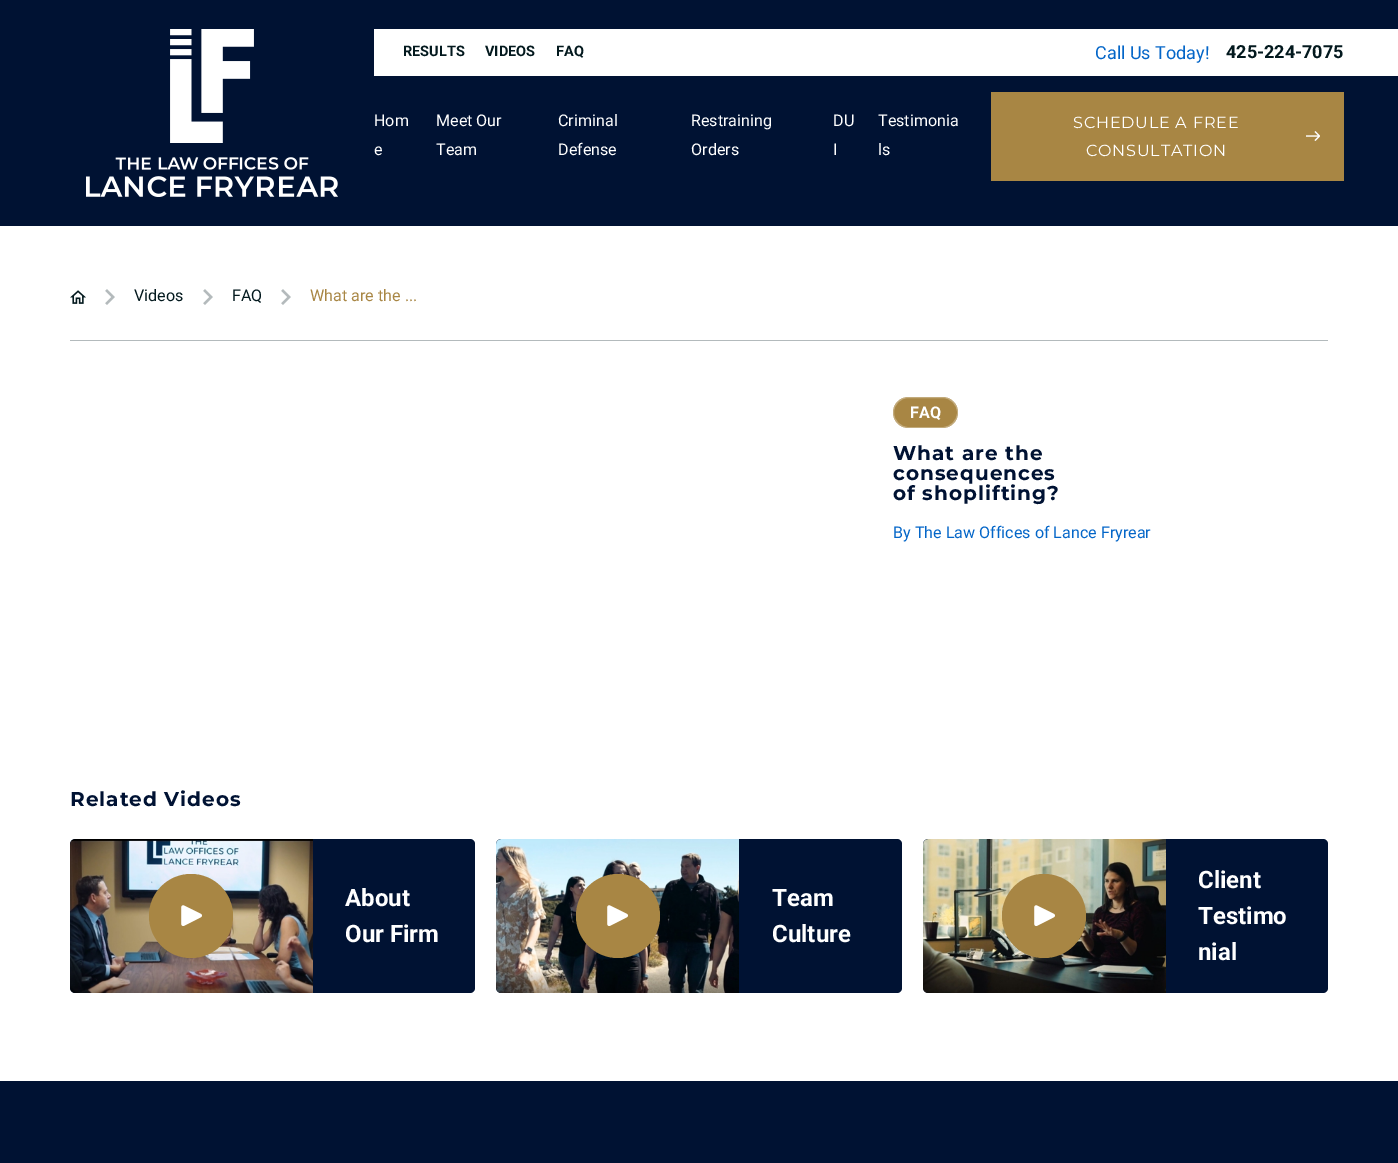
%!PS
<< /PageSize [1398 1163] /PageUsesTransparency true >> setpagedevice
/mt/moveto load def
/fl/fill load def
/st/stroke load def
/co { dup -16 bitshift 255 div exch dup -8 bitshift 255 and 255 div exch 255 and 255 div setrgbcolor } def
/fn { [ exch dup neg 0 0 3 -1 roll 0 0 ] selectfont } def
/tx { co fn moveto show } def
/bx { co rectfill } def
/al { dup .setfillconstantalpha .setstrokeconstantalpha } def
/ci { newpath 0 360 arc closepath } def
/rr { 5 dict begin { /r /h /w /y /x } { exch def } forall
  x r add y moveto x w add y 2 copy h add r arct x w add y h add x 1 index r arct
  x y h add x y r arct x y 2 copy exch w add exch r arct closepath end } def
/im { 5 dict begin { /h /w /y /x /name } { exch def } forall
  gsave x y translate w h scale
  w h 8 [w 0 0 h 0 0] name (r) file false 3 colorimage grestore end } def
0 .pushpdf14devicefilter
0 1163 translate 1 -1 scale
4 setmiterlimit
0 0 1398 1163 16#FFFFFF bx
0 0 1398 226 16#001233 bx
(media/1.raw) 86 29 252 168 im
374 29 1024 47 16#FFFFFF bx
991 92 353 89 16#A88644 bx
(media/2.raw) 1306 131 14 10 im
70 340 1258 1 16#B3BABC bx
(media/3.raw) 70 290 16 14 im
(media/4.raw) 105 289 10 16 im
(media/4.raw) 203 289 10 16 im
(media/4.raw) 281 289 10 16 im
16#A88644 co
893 397 65 31 15.5 rr fl
0.3 al
16#FFFFFF co
893.5 397.5 64 30 15 rr st
1 al
16#001233 co
70 839 405 154 5 rr fl
(media/5.raw) 70 839 243 154 im
16#A88644 co
191 916 42 ci fl
(media/6.raw) 181 905 21 21 im
16#001233 co
496 839 406 154 5 rr fl
(media/7.raw) 496 839 243 154 im
16#A88644 co
618 916 42 ci fl
(media/6.raw) 607 905 21 21 im
16#001233 co
923 839 405 154 5 rr fl
(media/8.raw) 923 839 243 154 im
16#A88644 co
1044 916 42 ci fl
(media/6.raw) 1034 905 21 21 im
0 1081 1398 82 16#001233 bx
(RESULTS) 403 56 /Roboto-Bold 14.5 16#03191E tx
(VIDEOS) 485 56 /Roboto-Bold 14.5 16#03191E tx
(FAQ) 556 56 /Roboto-Bold 14.5 16#03191E tx
(Call Us Today!) 1095 59 /Roboto-Regular 18 16#0466C8 tx
(425-224-7075) 1226 58 /Roboto-Bold 18 16#03191E tx
(Hom) 374 126 /Roboto-Regular 16.1 16#FFFFFF tx
(e) 374 155 /Roboto-Regular 16.1 16#FFFFFF tx
(Meet Our) 436 126 /Roboto-Regular 16.1 16#FFFFFF tx
(Team) 436 155 /Roboto-Regular 16.1 16#FFFFFF tx
(Criminal) 558 126 /Roboto-Regular 16.1 16#FFFFFF tx
(Defense) 558 155 /Roboto-Regular 16.1 16#FFFFFF tx
(Restraining) 691 126 /Roboto-Regular 16.1 16#FFFFFF tx
(Orders) 691 155 /Roboto-Regular 16.1 16#FFFFFF tx
(DU) 833 126 /Roboto-Regular 16.1 16#FFFFFF tx
(I) 833 155 /Roboto-Regular 16.1 16#FFFFFF tx
(Testimonia) 878 126 /Roboto-Regular 16.1 16#FFFFFF tx
(ls) 878 155 /Roboto-Regular 16.1 16#FFFFFF tx
/Montserrat-Regular 16.1 fn
1073 128 mt .75 0 (SCHEDULE A FREE) ashow
1086 156 mt .75 0 (CONSULTATION) ashow
(Videos) 134 301 /Roboto-Regular 16.1 16#03191E tx
(FAQ) 232 301 /Roboto-Regular 16.1 16#03191E tx
(What are the ...) 310 301 /Roboto-Regular 16.1 16#A88644 tx
(FAQ) 910 418 /Roboto-Bold 16.1 16#FFFFFF tx
/Montserrat-Bold 20 fn
16#001233 co
893 460 mt 1 0 (What are the) ashow
893 480 mt 1 0 (consequences) ashow
893 500 mt 1 0 (of shoplifting?) ashow
(By The Law Offices of Lance Fryrear) 893 538 /Roboto-Regular 16.1 16#0466C8 tx
/Montserrat-Bold 20 fn
16#001233 co
70 806 mt 1 0 (Related Videos) ashow
(About) 345 906 /Roboto-Bold 24 16#FFFFFF tx
(Our Firm) 345 942 /Roboto-Bold 24 16#FFFFFF tx
(Team) 772 906 /Roboto-Bold 24 16#FFFFFF tx
(Culture) 772 942 /Roboto-Bold 24 16#FFFFFF tx
(Client) 1198 888 /Roboto-Bold 24 16#FFFFFF tx
(Testimo) 1198 924 /Roboto-Bold 24 16#FFFFFF tx
(nial) 1198 960 /Roboto-Bold 24 16#FFFFFF tx
.poppdf14devicefilter showpage
